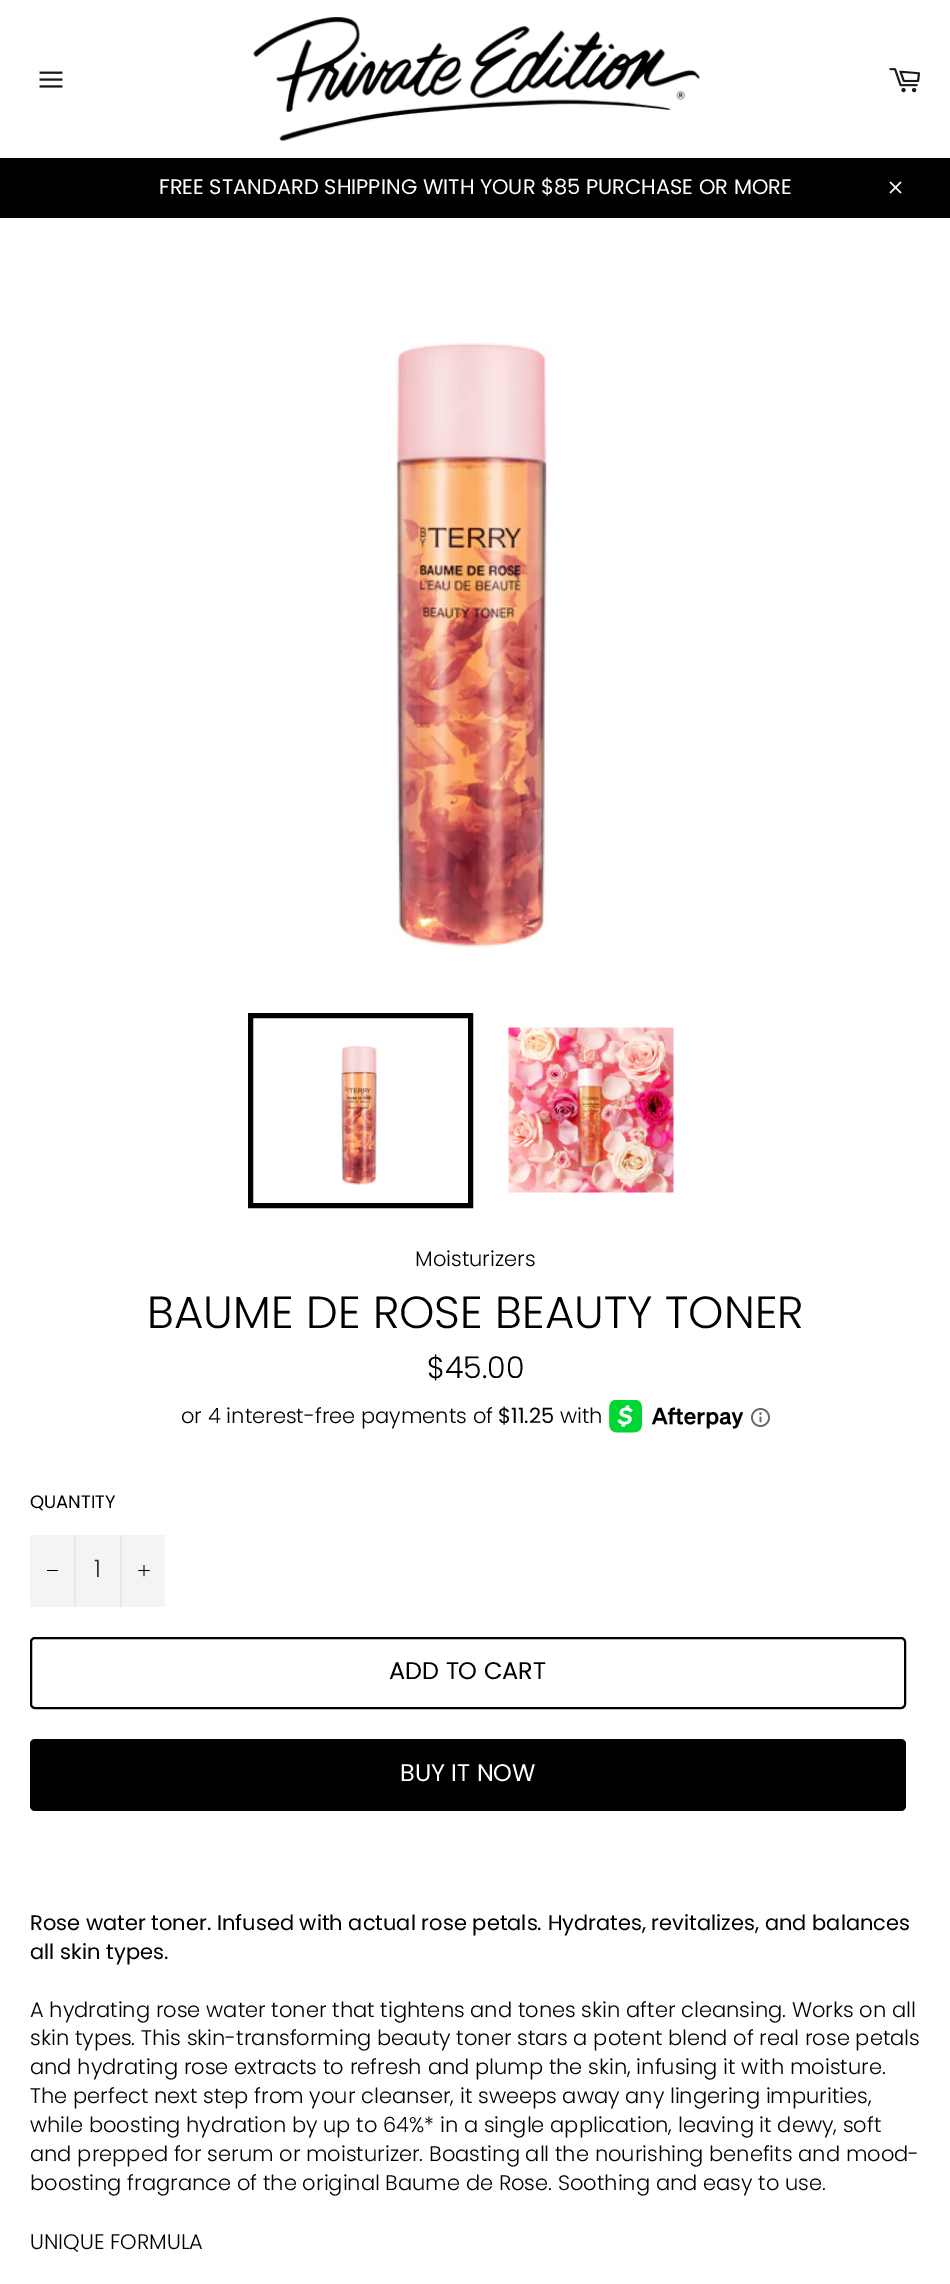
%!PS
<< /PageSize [950 2284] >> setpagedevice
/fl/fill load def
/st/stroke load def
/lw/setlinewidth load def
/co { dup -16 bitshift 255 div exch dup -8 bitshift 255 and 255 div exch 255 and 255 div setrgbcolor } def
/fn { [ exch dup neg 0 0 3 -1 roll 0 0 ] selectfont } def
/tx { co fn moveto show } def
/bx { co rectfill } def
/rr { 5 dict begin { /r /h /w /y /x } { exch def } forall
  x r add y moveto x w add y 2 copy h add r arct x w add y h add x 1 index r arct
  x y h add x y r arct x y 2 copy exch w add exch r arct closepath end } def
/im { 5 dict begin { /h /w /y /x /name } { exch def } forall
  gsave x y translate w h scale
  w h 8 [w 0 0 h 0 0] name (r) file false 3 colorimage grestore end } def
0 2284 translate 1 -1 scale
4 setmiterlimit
0 0 950 2284 16#FFFFFF bx
(media/1.raw) 39 71 24 17 im
(media/2.raw) 253 17 447 124 im
(media/3.raw) 889 68 31 25 im
0 158 950 60 16#000000 bx
(media/4.raw) 889 181 13 13 im
(media/5.raw) 393 343 155 605 im
(media/6.raw) 341 1046 36 140 im
5 lw
250.5 1015.5 220 190 rectstroke
(media/7.raw) 508 1027 166 166 im
(media/8.raw) 609 1400 135 33 im
(media/9.raw) 751 1408 19 19 im
30 1535 135 72 16#F4F4F4 bx
74 1535 2 72 16#E7E7E7 bx
47 1570 11 1 16#000000 bx
120 1535 2 72 16#E7E7E7 bx
(media/10.raw) 138 1565 12 12 im
16#000000 co
2 lw
31 1638 874 70 4 rr st
30 1739 876 72 5 rr fl
(FREE STANDARD SHIPPING WITH YOUR $85 PURCHASE OR MORE) 159 194 /Poppins-Regular 21 16#FFFFFF tx
(Moisturizers) 415 1266 /Poppins-Light 21 16#000000 tx
(BAUME DE ROSE BEAUTY TONER) 147 1328 /Poppins-Light 45 16#000000 tx
($45.00) 427 1378 /Poppins-Light 30 16#000000 tx
(or 4 interest-free payments of) 181 1423 /Poppins-Light 21 16#000000 tx
($11.25) 498 1423 /Poppins-Regular 21 16#000000 tx
(with) 560 1423 /Poppins-Light 21 16#000000 tx
(QUANTITY) 30 1508 /Poppins-Regular 18 16#000000 tx
(1) 94 1577 /Poppins-Light 24 16#333333 tx
(ADD TO CART) 389 1679 /Poppins-Regular 24 16#000000 tx
(BUY IT NOW) 400 1781 /Poppins-Regular 24 16#FFFFFF tx
(Rose water toner. Infused with actual rose petals. Hydrates, revitalizes, and balances) 30 1930 /Poppins-Regular 21 16#000000 tx
(all skin types.) 30 1959 /Poppins-Regular 21 16#000000 tx
(A hydrating rose water toner that tightens and tones skin after cleansing. Works on all) 30 2017 /Poppins-Light 21 16#000000 tx
(skin types. This skin-transforming beauty toner stars a potent blend of real rose petals) 30 2045 /Poppins-Light 21 16#000000 tx
(and hydrating rose extracts to refresh and plump the skin, infusing it with moisture.) 30 2074 /Poppins-Light 21 16#000000 tx
(The perfect next step from your cleanser, it sweeps away any lingering impurities,) 30 2103 /Poppins-Light 21 16#000000 tx
(while boosting hydration by up to 64%* in a single application, leaving it dewy, soft) 30 2132 /Poppins-Light 21 16#000000 tx
(and prepped for serum or moisturizer. Boasting all the nourishing benefits and mood-) 30 2161 /Poppins-Light 21 16#000000 tx
(boosting fragrance of the original Baume de Rose. Soothing and easy to use.) 30 2190 /Poppins-Light 21 16#000000 tx
(UNIQUE FORMULA) 30 2249 /Poppins-Light 21 16#000000 tx
showpage
